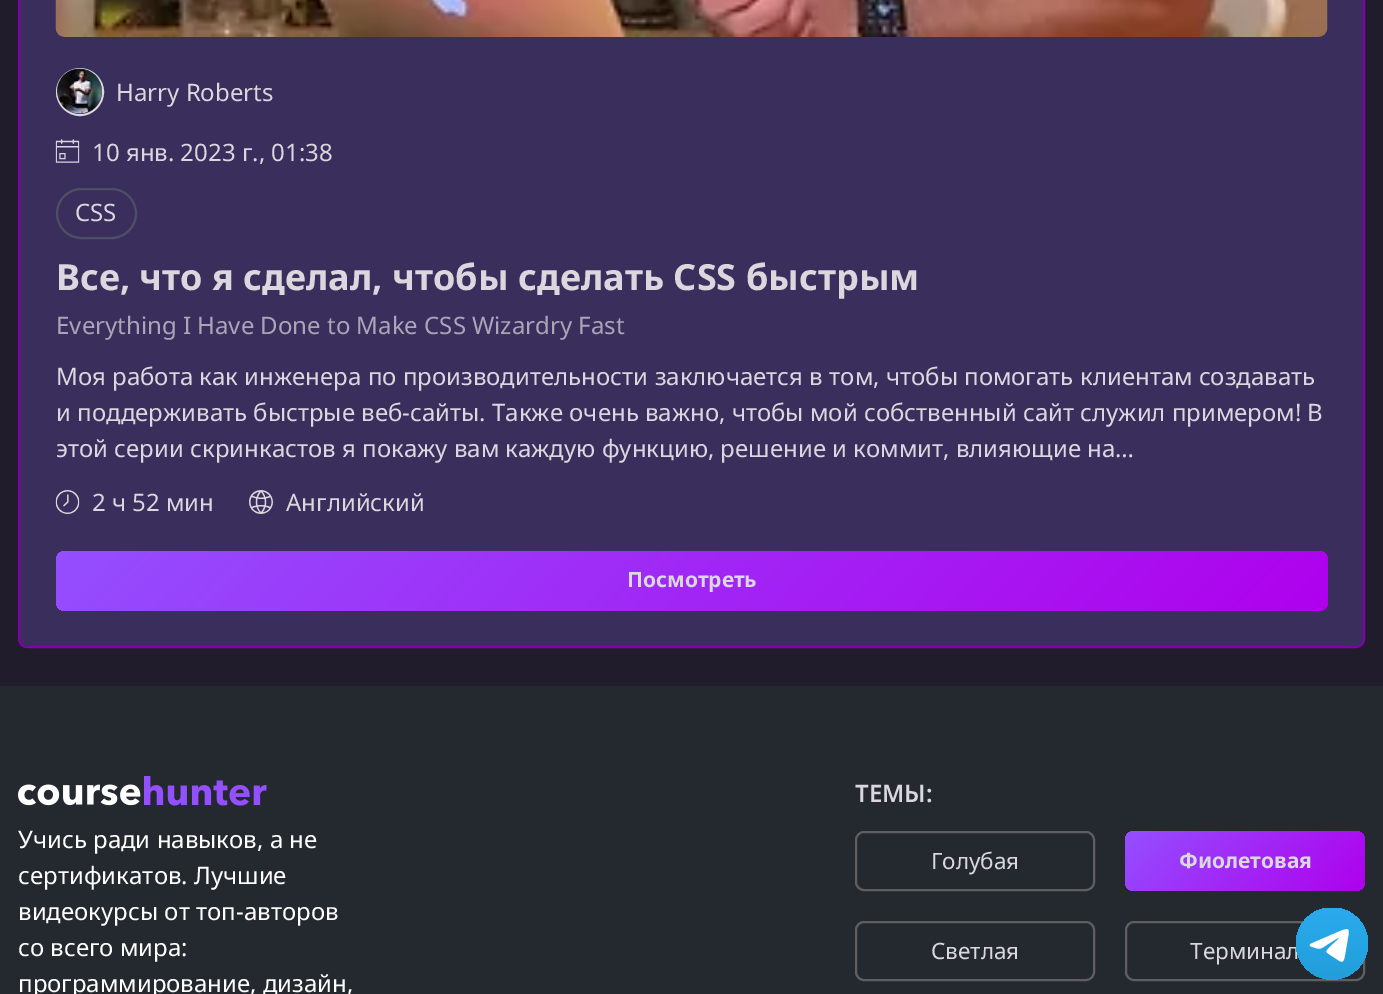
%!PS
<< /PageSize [1383 994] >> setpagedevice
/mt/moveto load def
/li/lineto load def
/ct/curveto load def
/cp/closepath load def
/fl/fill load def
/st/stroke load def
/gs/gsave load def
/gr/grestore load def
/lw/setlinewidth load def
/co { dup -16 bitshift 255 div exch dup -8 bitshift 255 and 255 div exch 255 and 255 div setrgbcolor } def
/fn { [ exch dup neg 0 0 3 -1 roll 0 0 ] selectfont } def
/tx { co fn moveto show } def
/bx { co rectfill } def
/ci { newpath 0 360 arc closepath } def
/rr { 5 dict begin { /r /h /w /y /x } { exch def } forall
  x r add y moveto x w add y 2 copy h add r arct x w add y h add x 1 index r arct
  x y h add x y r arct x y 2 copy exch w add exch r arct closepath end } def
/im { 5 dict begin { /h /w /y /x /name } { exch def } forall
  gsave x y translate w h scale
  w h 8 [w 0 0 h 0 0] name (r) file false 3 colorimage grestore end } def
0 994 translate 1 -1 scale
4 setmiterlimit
0 0 1383 994 16#201C2B bx
16#392E5C co
19 -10 1345 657 8 rr gs fl gr
16#7F00AC co
2 lw
st
(media/1.raw) 55 0 1273 37 im
16#DAD8DE co
80 92 23 ci st
(media/2.raw) 57 68 45 46 im
(media/3.raw) 55 139 25 24 im
16#4D5064 co
57 189 79 49 24.5 rr st
(media/4.raw) 55 490 25 24 im
(media/5.raw) 249 490 24 24 im
gs 56 551 1272 60 9 rr clip newpath
<< /ShadingType 2 /ColorSpace /DeviceRGB /Coords [347 248 1036 913] /Extend [true true] /Function << /FunctionType 2 /Domain [0 1] /C0 [.58 .31 1] /C1 [.686 0 .929] /N 1 >> >> shfill gr
0 686 1383 308 16#24292F bx
(media/6.raw) 18 776 249 30 im
16#605E5E co
856 832 238 58 8 rr st
gs 1125 831 240 60 9 rr clip newpath
<< /ShadingType 2 /ColorSpace /DeviceRGB /Coords [1168 787 1322 935] /Extend [true true] /Function << /FunctionType 2 /Domain [0 1] /C0 [.58 .31 1] /C1 [.686 0 .929] /N 1 >> >> shfill gr
856 922 238 58 8 rr st
1126 922 238 58 8 rr st
(Harry Roberts) 116 101 /NotoSans-Regular 24 16#DAD8DE tx
(10 янв. 2023 г., 01:38) 92 161 /NotoSans-Regular 24 16#DAD8DE tx
(CSS) 75 221 /NotoSans-Regular 24 16#DAD8DE tx
(Все, что я сделал, чтобы сделать CSS быстрым) 56 290 /NotoSans-Bold 36 16#DAD8DE tx
(Everything I Have Done to Make CSS Wizardry Fast) 56 334 /NotoSans-Regular 24 16#AAA5B7 tx
(Моя работа как инженера по производительности заключается в том, чтобы помогать клиентам создавать) 56 385 /NotoSans-Regular 24 16#DAD8DE tx
(и поддерживать быстрые веб-сайты. Также очень важно, чтобы мой собственный сайт служил примером! В) 56 421 /NotoSans-Regular 24 16#DAD8DE tx
(этой серии скринкастов я покажу вам каждую функцию, решение и коммит, влияющие на…) 56 457 /NotoSans-Regular 24 16#DAD8DE tx
(2 ч 52 мин) 92 511 /NotoSans-Regular 24 16#DAD8DE tx
(Английский) 286 511 /NotoSans-Regular 24 16#DAD8DE tx
(Посмотреть) 627 587 /NotoSans-Bold 21 16#DAD8DE tx
(Учись ради навыков, а не) 18 848 /NotoSans-Regular 24 16#FFFFFF tx
(сертификатов. Лучшие) 18 884 /NotoSans-Regular 24 16#FFFFFF tx
(видеокурсы от топ-авторов) 18 920 /NotoSans-Regular 24 16#FFFFFF tx
(со всего мира:) 18 956 /NotoSans-Regular 24 16#FFFFFF tx
(программирование, дизайн,) 18 992 /NotoSans-Regular 24 16#FFFFFF tx
(ТЕМЫ:) 855 802 /NotoSans-SemiBold 24 16#DAD8DE tx
(Голубая) 931 869 /NotoSans-Regular 22.5 16#DAD8DE tx
(Фиолетовая) 1179 868 /NotoSans-Bold 21 16#DAD8DE tx
(Cветлая) 931 959 /NotoSans-Regular 22.5 16#DAD8DE tx
(Терминал) 1190 959 /NotoSans-Regular 22.5 16#DAD8DE tx
gs
1296 908 72 72 rectclip
gs 1332 943.5 36 ci clip newpath
<< /ShadingType 2 /ColorSpace /DeviceRGB /Coords [1332 908 1332 979] /Extend [true true] /Function << /FunctionType 2 /Domain [0 1] /C0 [.165 .671 .933] /C1 [.133 .62 .851] /N 1 >> >> shfill gr
gr
16#FFFFFF co
1312.5 943 mt 1341.5 930.5 li 1348 928.5 1349 928 1348.5 934.5 ct 1345 955 li 1343.5 963 1342.5 963 1336.5 959 ct 1334.5 957.5 1327.5 953.5 1326.5 952 ct 1325.5 949 1339.5 939.5 1339 937.5 ct 1338.5 937.5 li 1326.5 945 li 1320 949.5 1320 949.5 1312.5 947 ct 1309 946 1308.5 944.5 1312.5 943 ct cp fl
showpage
